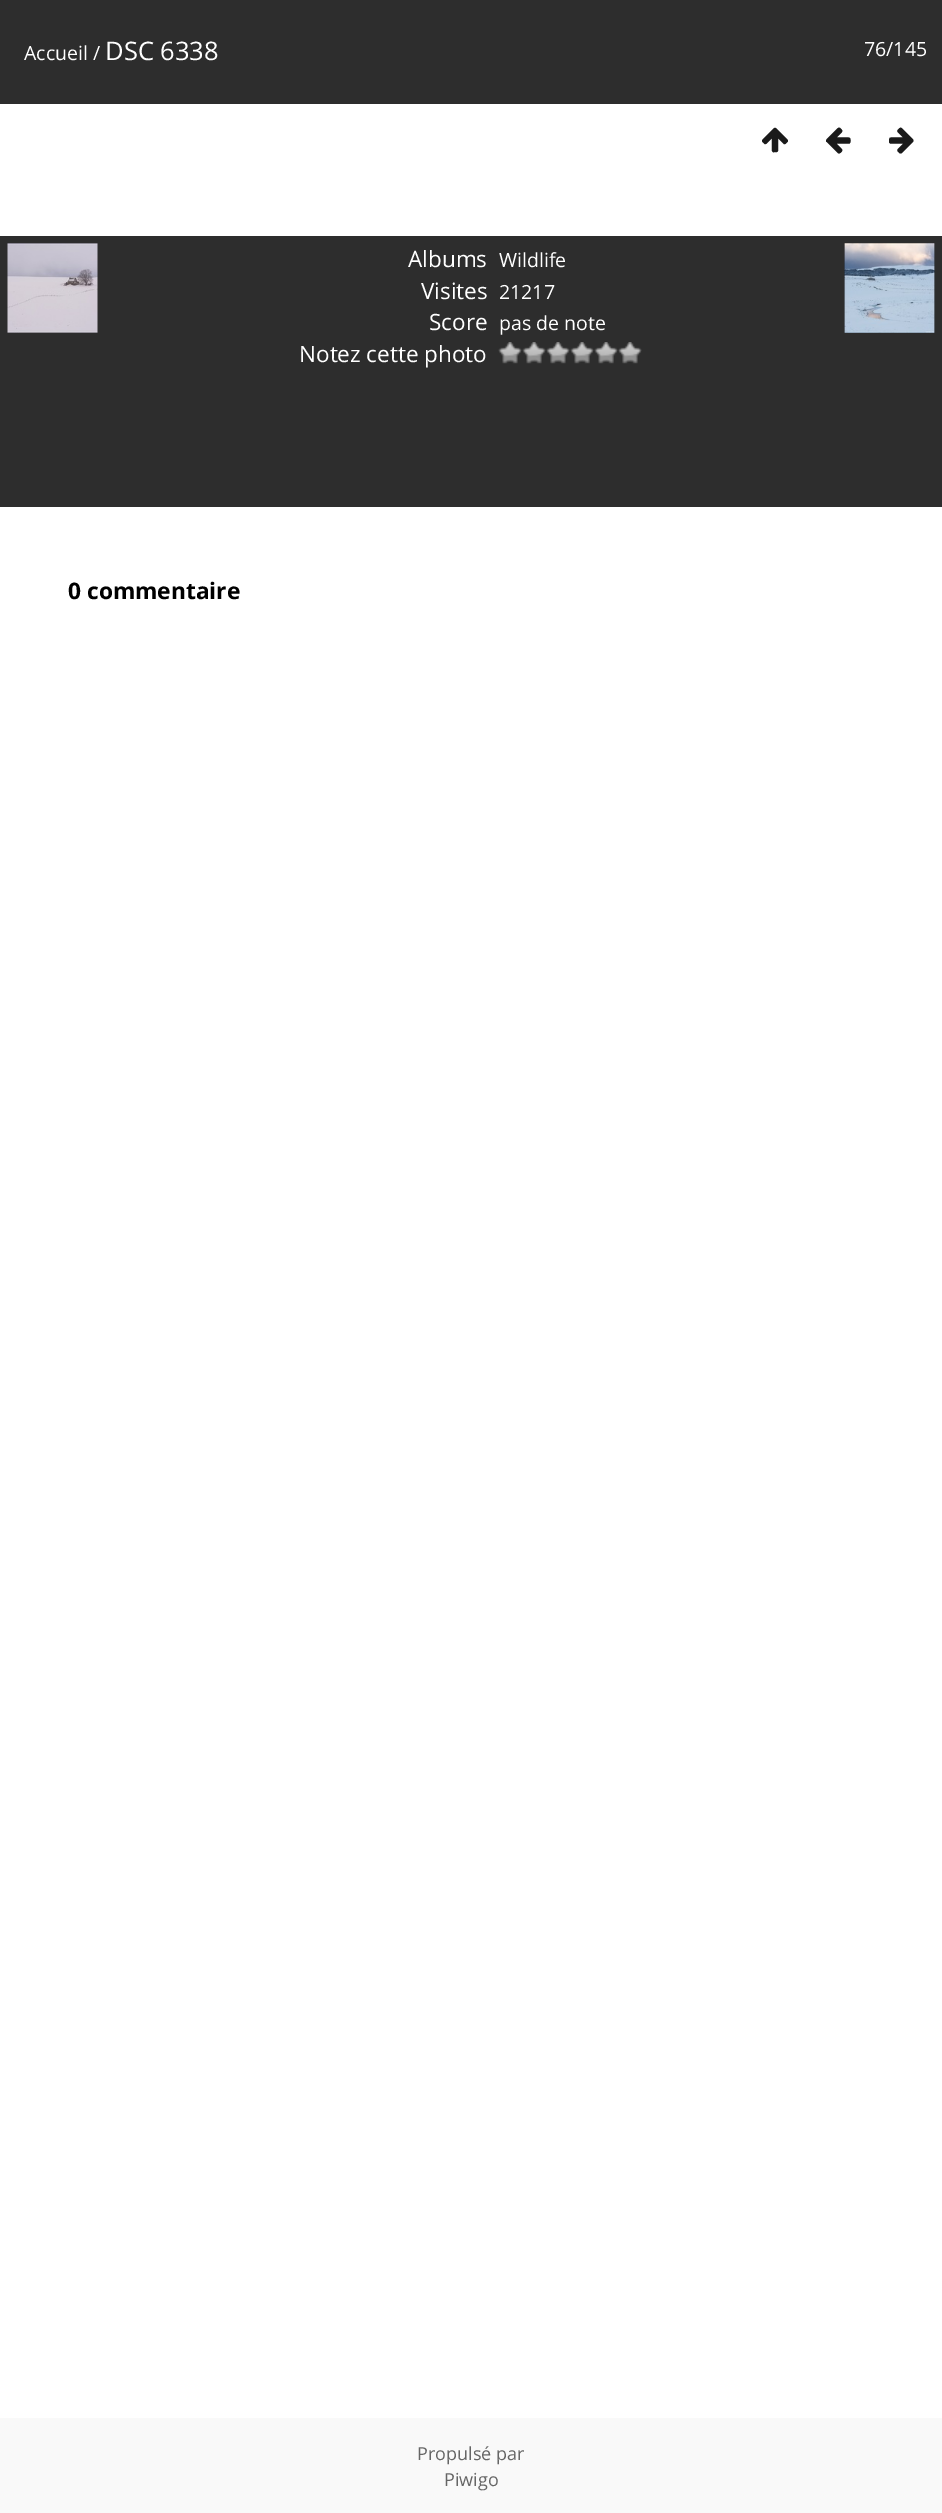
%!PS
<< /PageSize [942 2513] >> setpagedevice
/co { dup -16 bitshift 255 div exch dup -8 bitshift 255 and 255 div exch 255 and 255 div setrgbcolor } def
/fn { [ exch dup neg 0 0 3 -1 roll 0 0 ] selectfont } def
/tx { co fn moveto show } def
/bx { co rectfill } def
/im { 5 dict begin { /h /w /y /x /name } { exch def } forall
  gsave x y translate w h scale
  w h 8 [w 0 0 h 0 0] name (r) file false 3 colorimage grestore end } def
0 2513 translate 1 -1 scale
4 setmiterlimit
0 0 942 2513 16#FFFFFF bx
0 0 942 104 16#2D2D2D bx
0 236 942 271 16#2D2D2D bx
(media/1.raw) 7 243 91 90 im
(media/2.raw) 844 243 91 90 im
(media/3.raw) 498 342 24 22 im
(media/4.raw) 522 342 24 22 im
(media/5.raw) 546 342 24 22 im
(media/6.raw) 570 342 24 22 im
(media/6.raw) 594 342 24 22 im
(media/5.raw) 618 342 24 22 im
0 2418 942 95 16#F9F9F9 bx
(Accueil /) 24 60 /OpenSans-Regular 19.5 16#FFFFFF tx
(DSC 6338) 105 60 /OpenSans-Regular 25.5 16#FFFFFF tx
(76/145) 864 56 /OpenSans-Regular 19.5 16#FFFFFF tx
(↑) 762 150 /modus-Regular 30 16#1A1A1A tx
(←) 826 150 /modus-Regular 30 16#1A1A1A tx
(→) 889 150 /modus-Regular 30 16#1A1A1A tx
(Albums) 408 267 /OpenSans-Regular 22.5 16#FFFFFF tx
(Wildlife) 499 267 /OpenSans-Regular 19.5 16#FFFFFF tx
(Visites) 421 299 /OpenSans-Regular 22.5 16#FFFFFF tx
(21217) 499 299 /OpenSans-Regular 19.5 16#FFFFFF tx
(Score) 429 330 /OpenSans-Regular 22.5 16#FFFFFF tx
(pas de note) 499 330 /OpenSans-Regular 19.5 16#FFFFFF tx
(Notez cette photo) 299 362 /OpenSans-Regular 22.5 16#FFFFFF tx
(0 commentaire) 68 599 /OpenSans-Bold 22.75 16#000000 tx
(Propulsé par) 417 2460 /OpenSans-Regular 18 16#666666 tx
(Piwigo) 444 2486 /OpenSans-Regular 18 16#666666 tx
showpage
